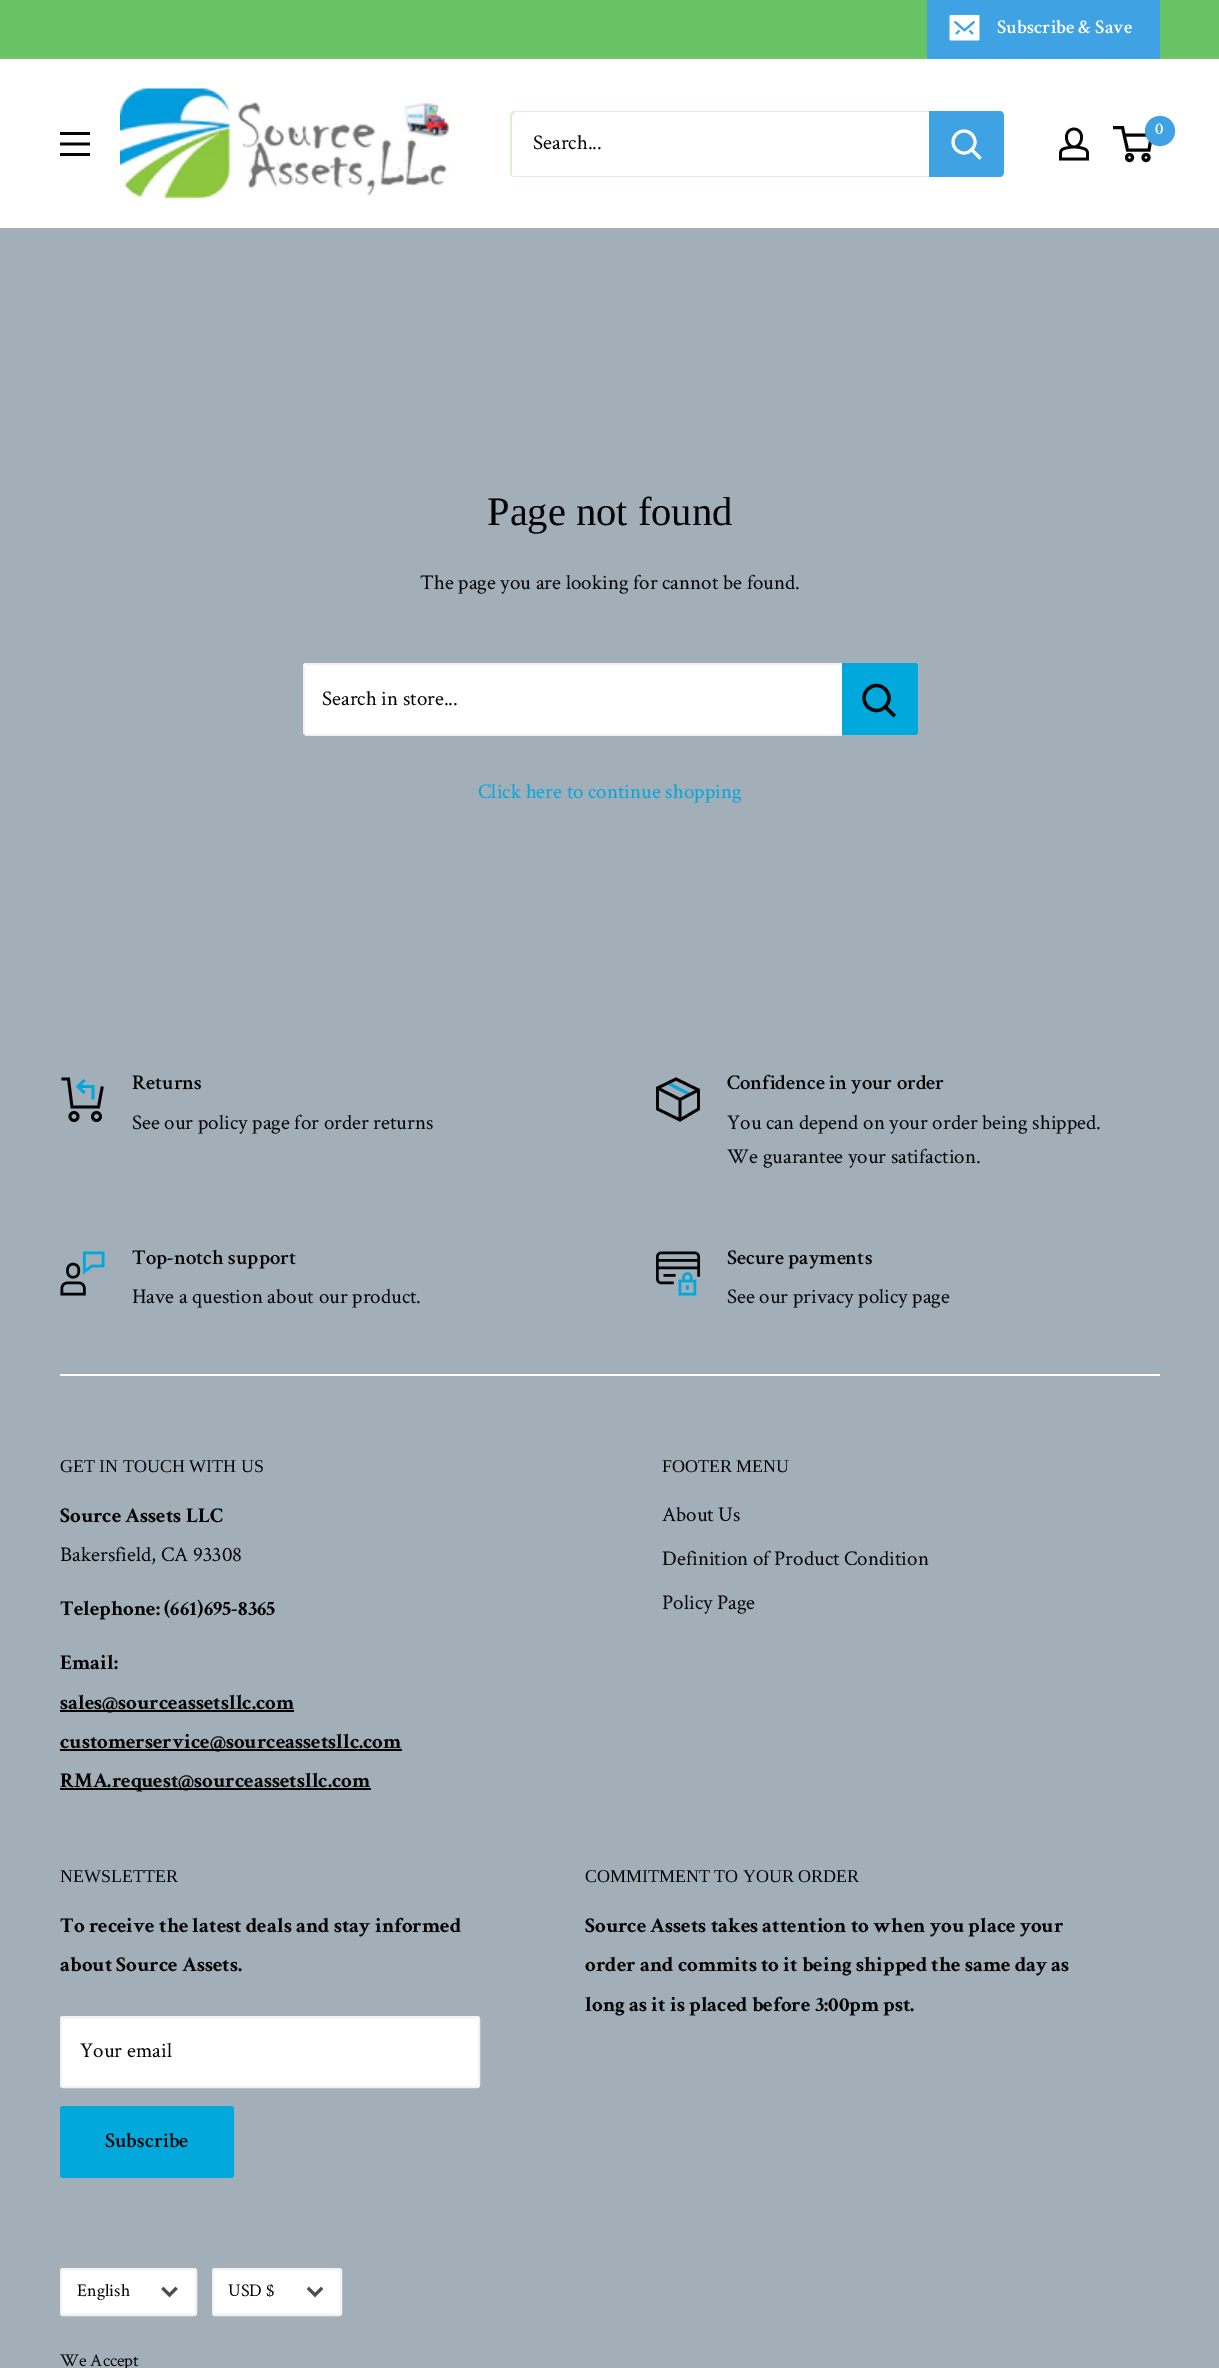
%!PS
<< /PageSize [1219 2368] >> setpagedevice
/mt/moveto load def
/li/lineto load def
/ct/curveto load def
/cp/closepath load def
/fl/fill load def
/st/stroke load def
/lw/setlinewidth load def
/co { dup -16 bitshift 255 div exch dup -8 bitshift 255 and 255 div exch 255 and 255 div setrgbcolor } def
/fn { [ exch dup neg 0 0 3 -1 roll 0 0 ] selectfont } def
/tx { co fn moveto show } def
/bx { co rectfill } def
/ci { newpath 0 360 arc closepath } def
/rr { 5 dict begin { /r /h /w /y /x } { exch def } forall
  x r add y moveto x w add y 2 copy h add r arct x w add y h add x 1 index r arct
  x y h add x y r arct x y 2 copy exch w add exch r arct closepath end } def
/im { 5 dict begin { /h /w /y /x /name } { exch def } forall
  gsave x y translate w h scale
  w h 8 [w 0 0 h 0 0] name (r) file false 3 colorimage grestore end } def
0 2368 translate 1 -1 scale
4 setmiterlimit
0 0 1219 2368 16#A2AEB8 bx
0 0 1219 57 16#67C363 bx
0 57 1219 2 16#71C764 bx
16#3FA3E3 co
927 57 mt 927 59 li 1160 59 li 1160 2 li 1160 57 li cp fl
927 0 233 57 16#3FA3E3 bx
(media/1.raw) 949 15 31 26 im
0 59 1219 169 16#FFFFFF bx
(media/2.raw) 120 88 333 111 im
(media/3.raw) 1059 127 30 34 im
16#050505 co
3 lw
1129.5 157.5 3 ci st
1146 157.5 3 ci st
1124 135 mt 1151.5 135 li 1149 150 li 1127.5 150 li 1122.5 127.5 li 1113 127.5 li st
16#3FA3E3 co
1160 131 15 ci fl
(media/4.raw) 60 132 30 24 im
16#DCF1D1 co
511 176 mt 512 176 514 177 515 177 ct 999 177 li 1002 177 1004 175 1004 172 ct 1004 116 li 1004 114 1003 112 1001 111 ct 1002 112 1002 113 1002 114 ct 1002 171 li 1002 173 1000 176 998 176 ct 513 176 li cp fl
516 112 mt 1000 112 li 1003 113 li 1002 112 1001 111 999 111 ct 515 111 li 512 111 510 113 510 116 ct 510 172 li 510 174 511 176 513 177 ct 512 176 512 175 512 174 ct 512 117 li 512 115 514 112 516 112 ct cp fl
16#3FA3E3 co
929 111 mt 999 111 li 1002 111 1004 113 1004 116 ct 1004 172 li 1004 175 1002 177 999 177 ct 929 177 li cp fl
16#FFFFFF co
2 setlinecap
979.5 157.5 mt 972 150 li st
0 setlinecap
964 142 11 ci st
306 663 mt 842 663 li 842 735 li 306 735 li 304.5 735 303 733.5 303 732 ct 303 666 li 303 664.5 304.5 663 306 663 ct cp fl
16#FCFCFC co
306 666 mt 842 666 li 842 665 li 306 665 li 306 665 305 666 305 666 ct cp fl
305 663 537 2 16#F2F2F2 bx
305 734 537 2 16#F2F2F2 bx
303 665 2 69 16#F2F2F2 bx
16#00A8DB co
842 663 mt 915 663 li 916.5 663 918 664.5 918 666 ct 918 732 li 918 733.5 916.5 735 915 735 ct 842 735 li cp fl
16#050505 co
3.3 lw
2 setlinecap
893.5 715 mt 885.5 707 li st
0 setlinecap
876.5 698 12.5 ci st
16#00A8DB co
2.8 lw
78 1086.5 mt 93 1086.5 li 93 1099.5 li st
2 setlinecap
83.5 1092 mt 78 1086.5 li 83.5 1081 li st
16#050505 co
102 1088 mt 98.5 1107 li 72 1107 li 68.5 1079 li 63 1079 li st
0 setlinecap
74 1116.5 4 ci st
96.5 1116.5 4 ci st
16#00A8DB co
667.5 1083 mt 690 1094.5 li st
16#050505 co
698.5 1090 mt 680 1099.5 li 657.5 1088 li 680 1099.5 mt 680 1120 li st
2 setlinecap
698.5 1090 mt 698.5 1109 li 680 1120 li 657.5 1109 li 657.5 1088 li 676 1079 li cp st
(media/5.raw) 60 1251 45 45 im
(media/6.raw) 656 1251 45 45 im
60 1374 1100 2 16#FFFFFF bx
60 1710 234 2 16#000000 bx
60 1749 342 2 16#000000 bx
60 1788 311 2 16#000000 bx
16#FFFFFF co
60 2016 420 72 3 rr fl
16#FCFCFC co
63 2019 mt 477 2019 li 478 2019 478 2020 478 2020 ct 478 2087 li 479 2086 li 479 2020 li 479 2019 478 2018 478 2018 ct 64 2018 li 62 2018 62 2019 62 2020 ct cp fl
16#F2F2F2 co
2 lw
0 setlinecap
61 2017 418 70 2 rr st
16#00A8DB co
60 2106 174 72 3 rr fl
16#FFFFFF co
60 2268 137 48 3 rr fl
16#FBFBFB co
62 2312 mt 62 2313 62 2315 63 2315 ct 194 2315 li 195 2315 195 2313 195 2312 ct 194 2313 li 63 2313 li 62 2313 62 2312 62 2312 ct cp fl
16#F2F2F2 co
61 2269 135 46 2 rr st
16#4D4D4D co
3 lw
2 setlinecap
175.5 2289 mt 169.5 2295 li 163.5 2289 li st
16#FFFFFF co
212 2268 130 48 3 rr fl
16#FBFBFB co
213 2312 mt 213 2314 li 213 2314 214 2315 214 2315 ct 340 2315 li 340 2315 341 2314 341 2314 ct 341 2272 li 341 2271 341 2270 340 2270 ct 340 2312 li 340 2312 340 2313 339 2313 ct 214 2313 li cp fl
16#F2F2F2 co
2 lw
0 setlinecap
213 2269 128 46 2 rr st
16#4D4D4D co
3 lw
2 setlinecap
321 2289 mt 315 2295 li 309 2289 li st
(Subscribe & Save) 997 33 /CrimsonText-SemiBold 19.5 16#FFFFFF tx
(0) 1155 134 /CrimsonText-SemiBold 17 16#FFFFFF tx
(Search...) 533 149 /CrimsonText-Regular 21 16#050505 tx
(Page not found) 487 525 /LiberationSerif-Regular 40.5 16#050505 tx
(The page you are looking for cannot be found.) 420 589 /CrimsonText-Regular 21 16#050505 tx
(Search in store...) 322 705 /CrimsonText-Regular 21 16#050505 tx
(Click here to continue shopping) 478 798 /CrimsonText-Regular 21 16#00A8DB tx
(Returns) 132 1089 /CrimsonText-SemiBold 21 16#050505 tx
(See our policy page for order returns) 132 1129 /CrimsonText-Regular 21 16#050505 tx
(Confidence in your order) 727 1089 /CrimsonText-SemiBold 21 16#050505 tx
(You can depend on your order being shipped.) 727 1129 /CrimsonText-Regular 21 16#050505 tx
(We guarantee your satifaction.) 727 1163 /CrimsonText-Regular 21 16#050505 tx
(Top-notch support) 132 1264 /CrimsonText-SemiBold 21 16#050505 tx
(Have a question about our product.) 132 1303 /CrimsonText-Regular 21 16#050505 tx
(Secure payments) 727 1264 /CrimsonText-SemiBold 21 16#050505 tx
(See our privacy policy page) 727 1303 /CrimsonText-Regular 21 16#050505 tx
(GET IN TOUCH WITH US) 60 1472 /LiberationSerif-Regular 18 16#050505 tx
(Source Assets LLC) 60 1522 /CrimsonText-Bold 21 16#050505 tx
(Bakersfield, CA 93308) 60 1561 /CrimsonText-Regular 21 16#050505 tx
(Telephone: \(661\)695-8365) 60 1615 /CrimsonText-Bold 21 16#050505 tx
(Email:) 60 1669 /CrimsonText-Bold 21 16#050505 tx
(sales@sourceassetsllc.com) 60 1709 /CrimsonText-Bold 21 16#050505 tx
(customerservice@sourceassetsllc.com) 60 1748 /CrimsonText-Bold 21 16#050505 tx
(RMA.request@sourceassetsllc.com) 60 1787 /CrimsonText-Bold 21 16#050505 tx
(FOOTER MENU) 662 1472 /LiberationSerif-Regular 18 16#050505 tx
(About Us) 662 1521 /CrimsonText-Regular 21 16#050505 tx
(Definition of Product Condition) 662 1565 /CrimsonText-Regular 21 16#050505 tx
(Policy Page) 662 1609 /CrimsonText-Regular 21 16#050505 tx
(NEWSLETTER) 60 1882 /LiberationSerif-Regular 18 16#050505 tx
(To receive the latest deals and stay informed) 60 1932 /CrimsonText-Bold 21 16#050505 tx
(about Source Assets.) 60 1971 /CrimsonText-Bold 21 16#050505 tx
(Your email) 80 2057 /CrimsonText-Regular 21 16#050505 tx
(Subscribe) 105 2147 /CrimsonText-SemiBold 21 16#050505 tx
(COMMITMENT TO YOUR ORDER) 585 1882 /LiberationSerif-Regular 18 16#050505 tx
(Source Assets takes attention to when you place your) 585 1932 /CrimsonText-Bold 21 16#050505 tx
(order and commits to it being shipped the same day as) 585 1971 /CrimsonText-Bold 21 16#050505 tx
(long as it is placed before 3:00pm pst.) 585 2011 /CrimsonText-Bold 21 16#050505 tx
(English) 77 2296 /CrimsonText-Regular 18 16#050505 tx
(USD $) 228 2296 /CrimsonText-Regular 18 16#050505 tx
(We Accept) 60 2366 /CrimsonText-Regular 18 16#050505 tx
showpage
